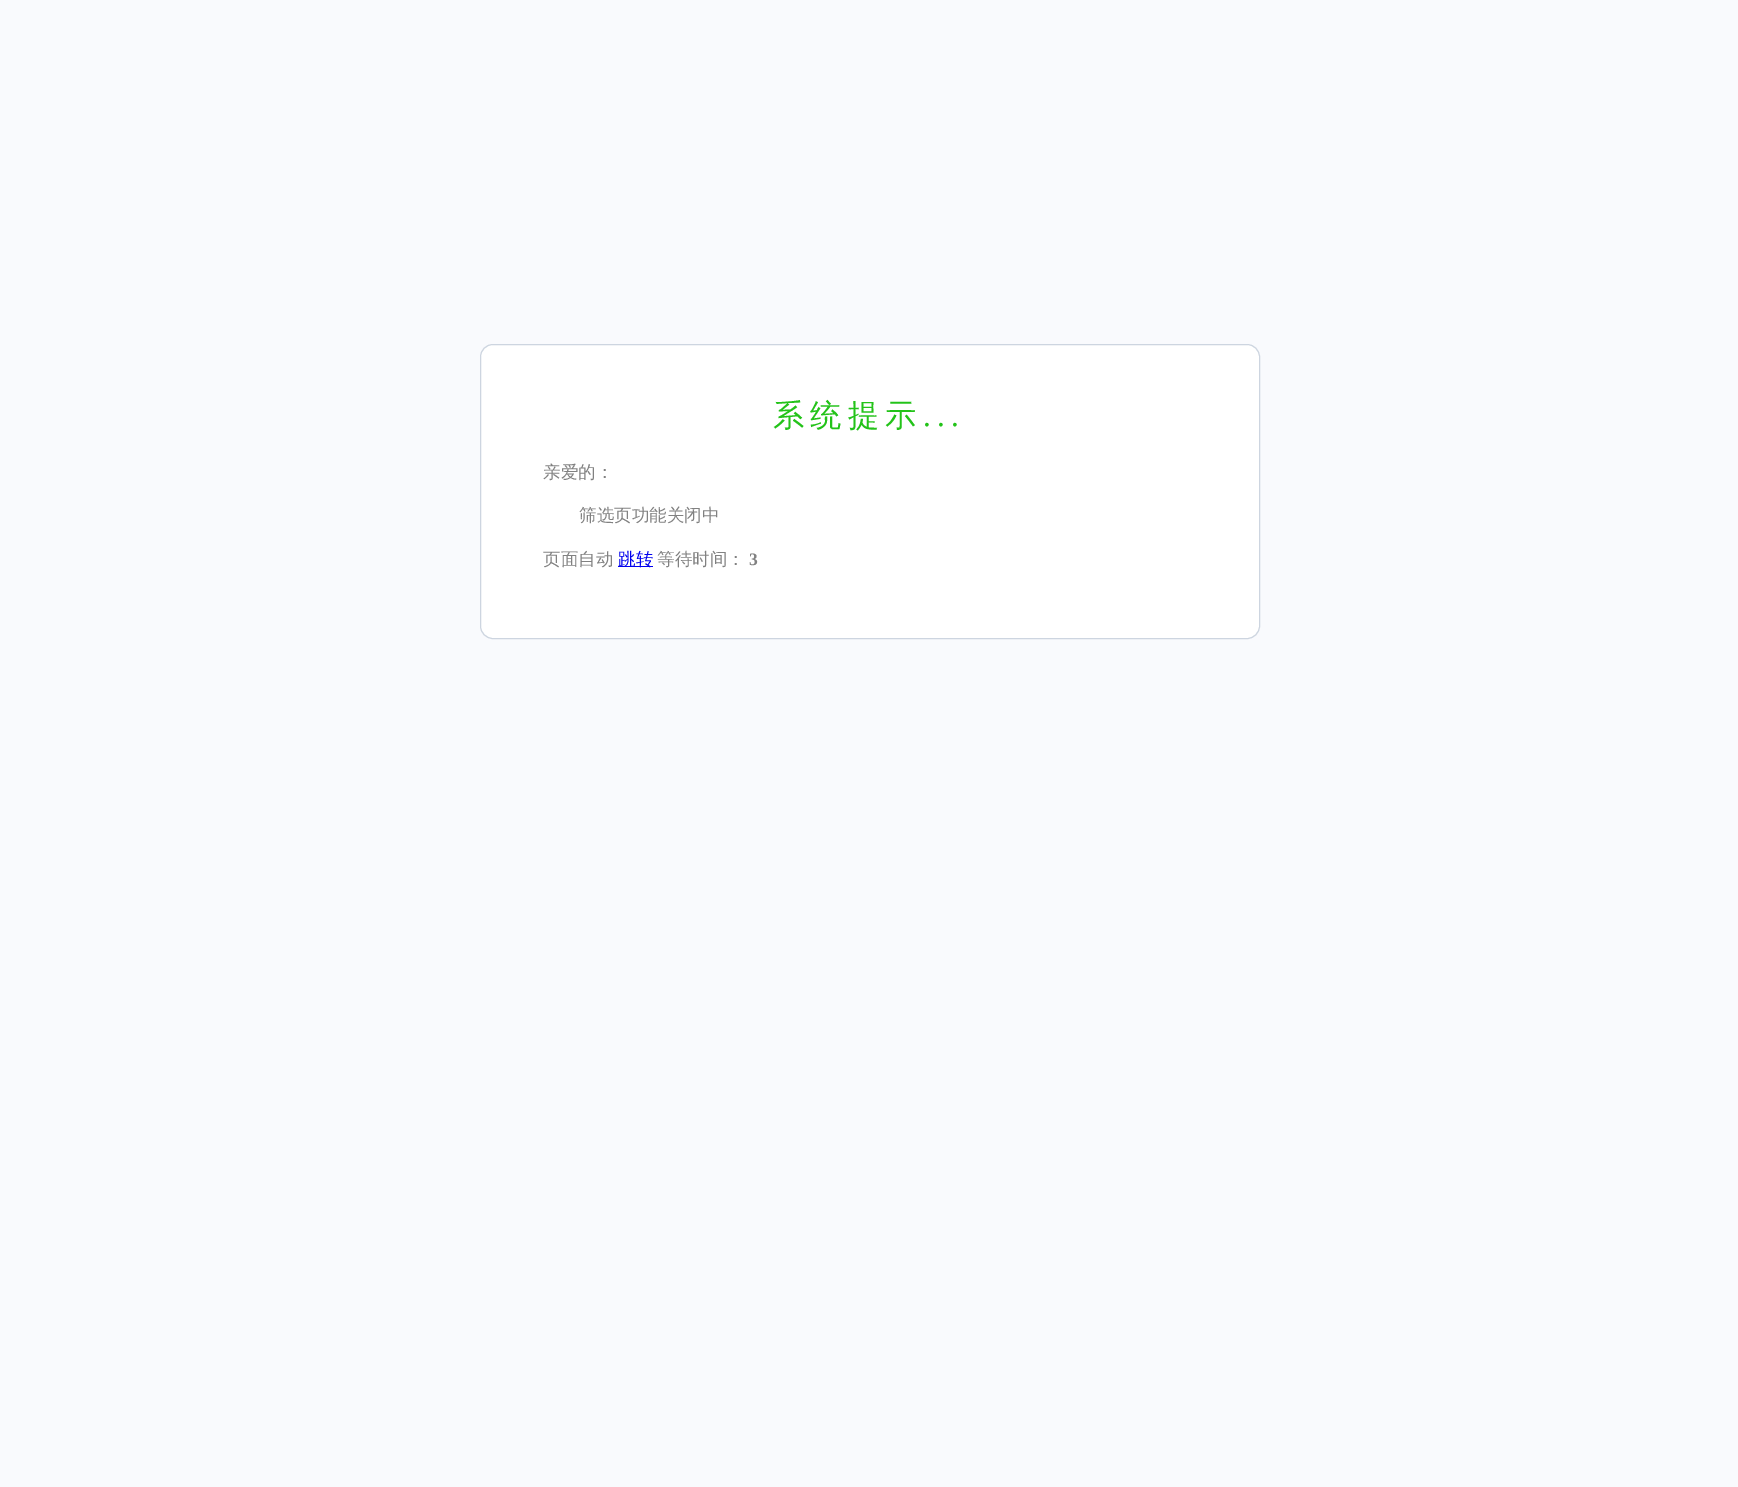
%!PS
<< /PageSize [1738 1487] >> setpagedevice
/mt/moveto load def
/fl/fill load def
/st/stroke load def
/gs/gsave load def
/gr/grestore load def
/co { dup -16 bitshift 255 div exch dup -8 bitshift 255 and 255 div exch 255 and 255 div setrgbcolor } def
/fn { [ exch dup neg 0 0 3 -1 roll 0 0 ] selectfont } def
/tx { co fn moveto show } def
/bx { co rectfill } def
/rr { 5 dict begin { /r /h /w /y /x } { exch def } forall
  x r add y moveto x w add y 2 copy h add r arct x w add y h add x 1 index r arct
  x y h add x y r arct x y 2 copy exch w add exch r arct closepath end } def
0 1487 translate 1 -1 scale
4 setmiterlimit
0 0 1738 1487 16#F9FAFD bx
16#FFFFFF co
480.5 344.5 779 294 12.5 rr gs fl gr
16#CDD5E0 co
st
618 566 35 1 16#0000EE bx
/WenQuanYiZenHei-Medium 31.25 fn
16#23C319 co
773 426 mt 6 0 (系统提示) ashow
/LiberationSerif-Regular 31.25 fn
923 426 mt 6 0 (...) ashow
(亲爱的：) 543 478 /WenQuanYiZenHei-Medium 17.5 16#818181 tx
(筛选页功能关闭中) 579 521 /WenQuanYiZenHei-Medium 17.5 16#818181 tx
(页面自动) 543 565 /WenQuanYiZenHei-Medium 17.5 16#818181 tx
(跳转) 618 565 /WenQuanYiZenHei-Medium 17.5 16#0000EE tx
(等待时间：) 657 565 /WenQuanYiZenHei-Medium 17.5 16#818181 tx
(3) 749 565 /LiberationSerif-Bold 17.5 16#818181 tx
showpage
